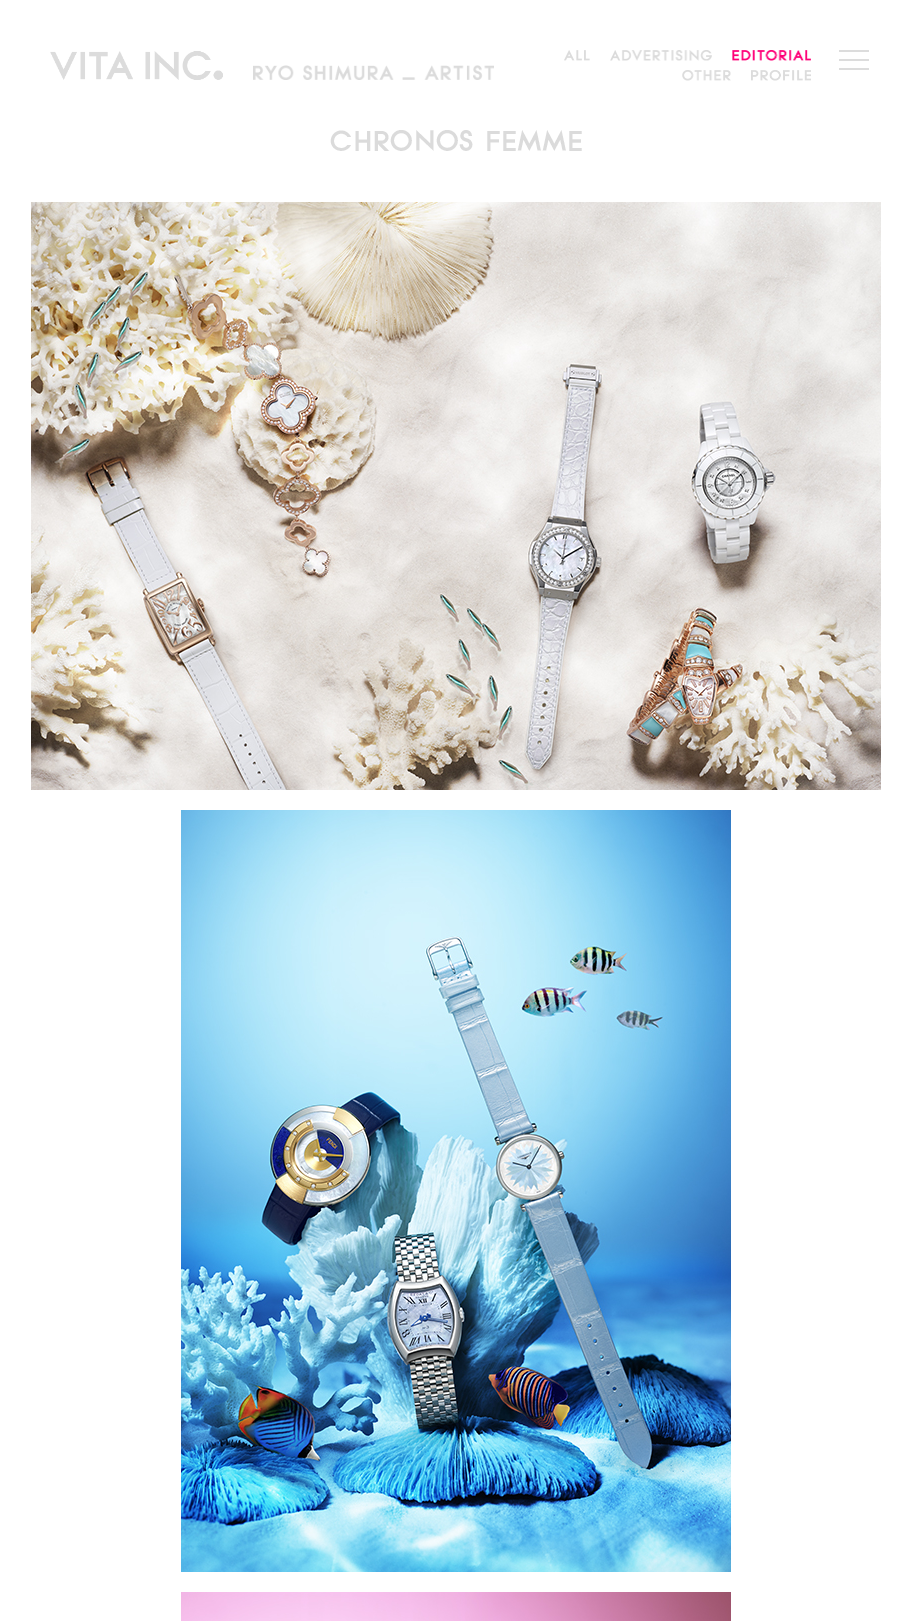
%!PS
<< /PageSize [911 1621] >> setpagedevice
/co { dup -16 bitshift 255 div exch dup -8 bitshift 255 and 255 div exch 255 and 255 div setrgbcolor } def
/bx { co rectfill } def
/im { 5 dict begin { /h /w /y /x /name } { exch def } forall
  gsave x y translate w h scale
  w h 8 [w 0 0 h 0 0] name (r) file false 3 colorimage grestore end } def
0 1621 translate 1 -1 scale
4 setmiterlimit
0 0 911 1621 16#FFFFFF bx
(media/1.raw) 50 51 173 29 im
(media/2.raw) 253 65 241 15 im
(media/3.raw) 564 50 26 11 im
(media/4.raw) 610 50 102 11 im
(media/5.raw) 732 50 79 11 im
(media/6.raw) 682 70 49 11 im
(media/7.raw) 751 70 60 11 im
839 59 30 2 16#DCDCDC bx
839 50 30 2 16#DCDCDC bx
839 68 30 2 16#DCDCDC bx
(media/8.raw) 330 130 252 21 im
(media/9.raw) 31 202 850 588 im
(media/10.raw) 181 810 550 762 im
(media/11.raw) 181 1592 550 29 im
showpage
